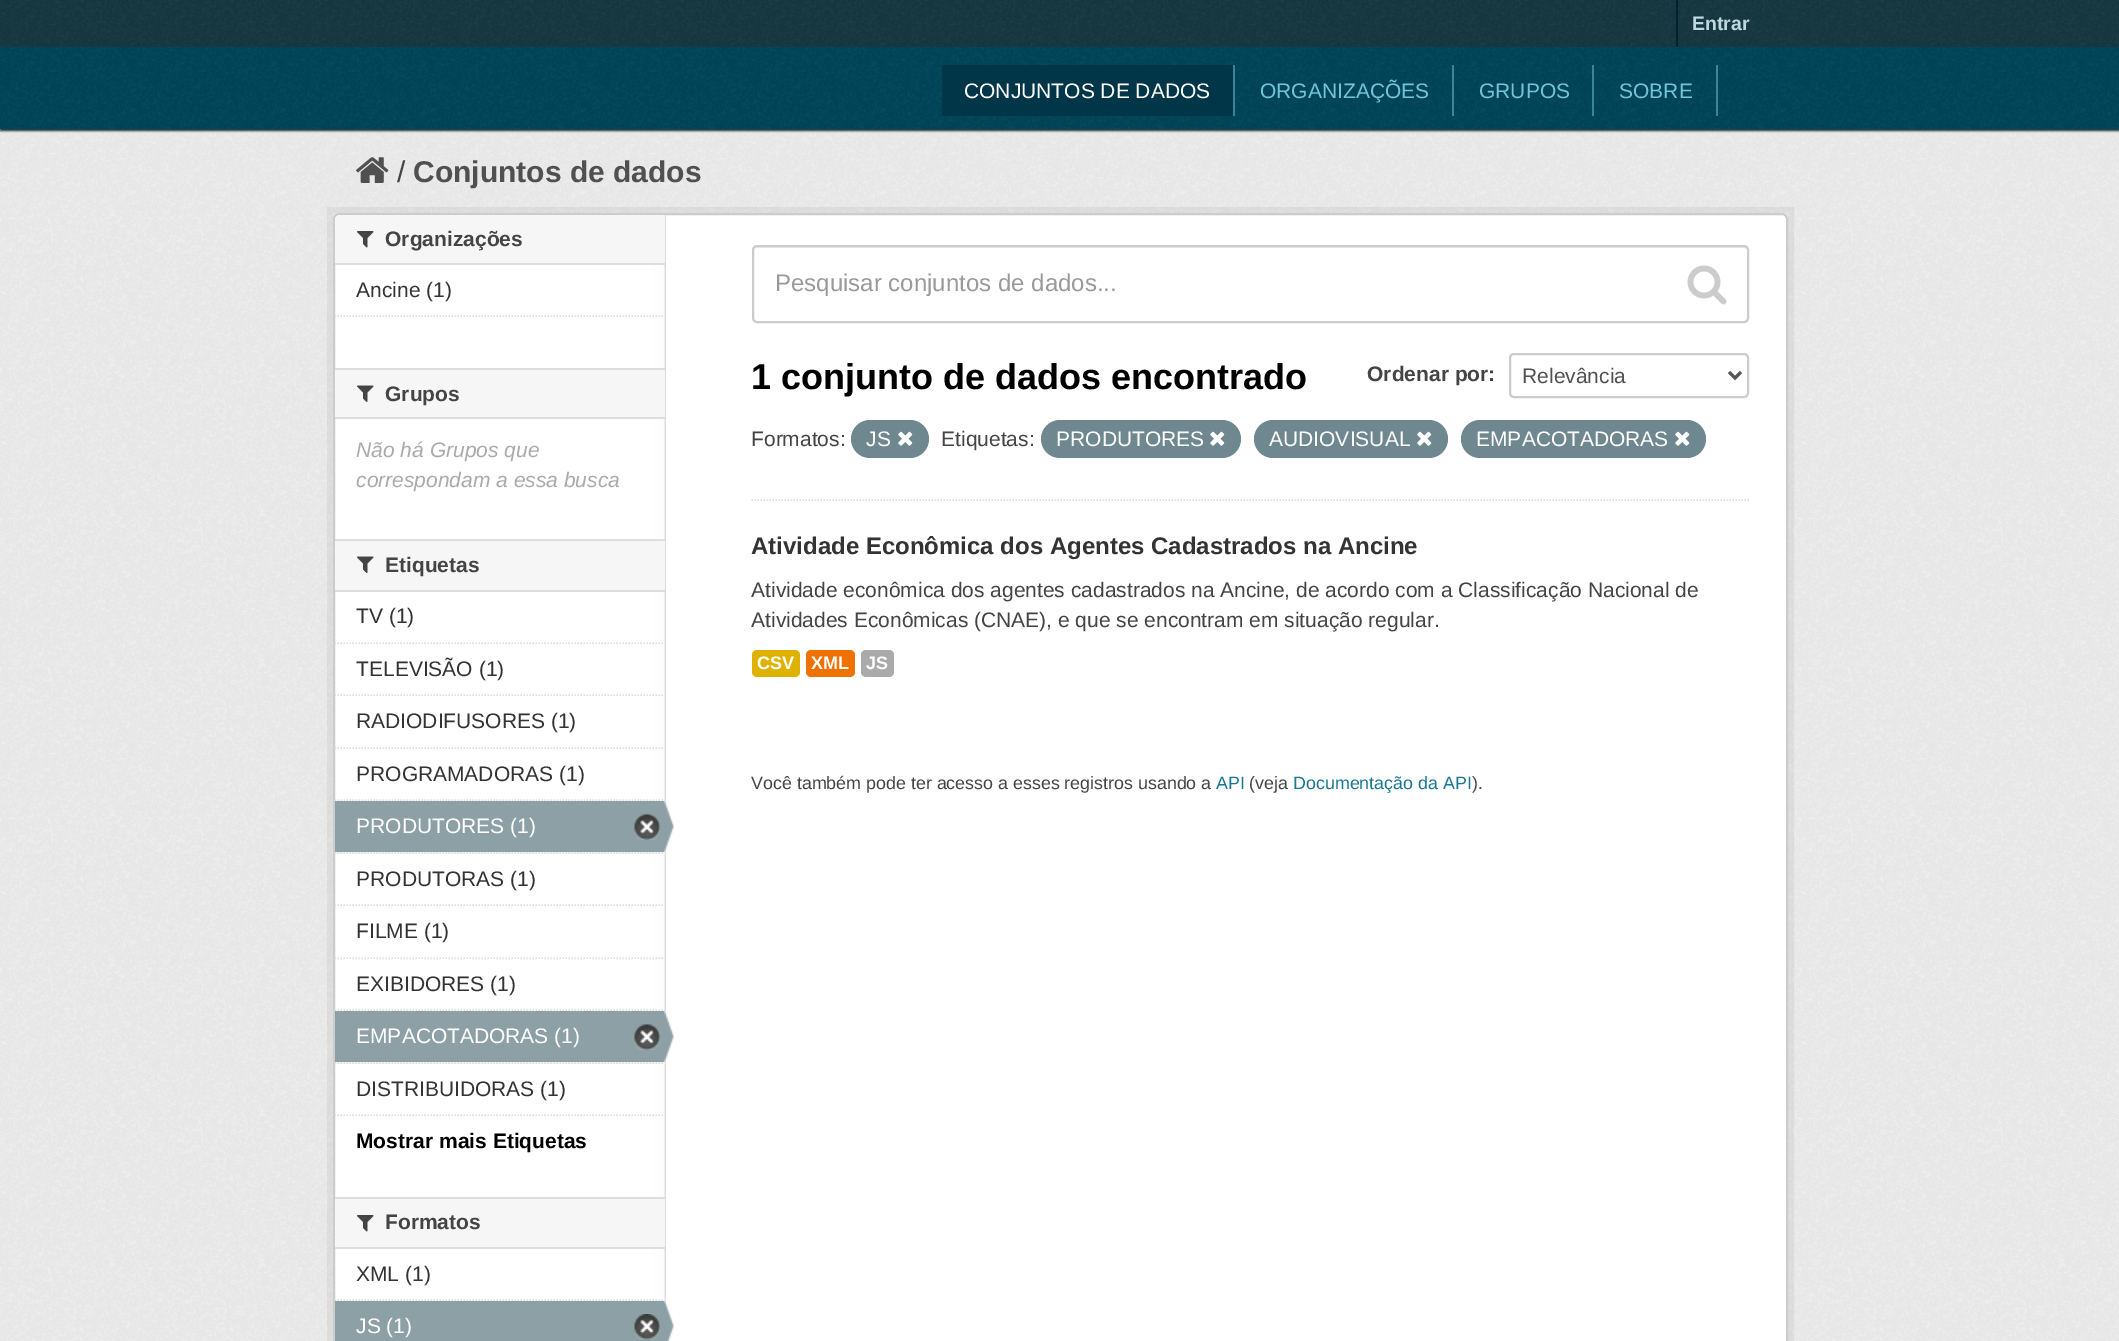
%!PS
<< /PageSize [2119 1341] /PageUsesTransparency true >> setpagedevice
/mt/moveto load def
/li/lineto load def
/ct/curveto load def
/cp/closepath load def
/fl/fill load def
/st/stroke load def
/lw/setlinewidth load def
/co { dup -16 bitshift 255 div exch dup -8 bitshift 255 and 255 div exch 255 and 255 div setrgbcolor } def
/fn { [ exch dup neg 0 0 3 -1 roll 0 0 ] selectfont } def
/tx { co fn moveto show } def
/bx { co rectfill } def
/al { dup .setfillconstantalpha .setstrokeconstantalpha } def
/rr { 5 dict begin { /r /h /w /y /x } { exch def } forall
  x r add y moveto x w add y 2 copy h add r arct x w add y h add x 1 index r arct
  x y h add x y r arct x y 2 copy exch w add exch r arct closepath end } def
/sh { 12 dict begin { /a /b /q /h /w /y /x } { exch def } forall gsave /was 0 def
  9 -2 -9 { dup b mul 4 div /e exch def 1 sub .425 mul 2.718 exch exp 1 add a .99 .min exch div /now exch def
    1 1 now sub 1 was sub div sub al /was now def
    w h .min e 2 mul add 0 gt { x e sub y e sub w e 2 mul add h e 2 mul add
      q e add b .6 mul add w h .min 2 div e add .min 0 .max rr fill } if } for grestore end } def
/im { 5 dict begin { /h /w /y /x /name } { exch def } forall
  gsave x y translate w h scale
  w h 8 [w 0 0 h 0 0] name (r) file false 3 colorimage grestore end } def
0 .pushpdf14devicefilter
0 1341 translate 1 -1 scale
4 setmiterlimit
0 0 2119 1341 16#163840 bx
(media/1.raw) 0 0 2119 46 im
1676 0 2 47 16#00232E bx
0 129 2119 1212 16#EEEEEE bx
(media/3.raw) 0 129 2119 1212 im
16#153035 co
0 48 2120 83 0 1 1 sh
0 47 2119 82 16#00455A bx
(media/2.raw) 0 47 2119 82 im
942 65 291 51 16#003647 bx
1233 65 2 51 16#3B8696 bx
1452 65 2 51 16#3B8696 bx
1592 65 2 51 16#3B8696 bx
1716 65 2 51 16#3B8696 bx
(media/4.raw) 356 157 33 26 im
0.05 al
16#000000 co
6 lw
330 210 1461 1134 rectstroke
1 al
16#FFFFFF co
333 213 1455 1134 6 rr fl
(media/5.raw) 336 213 330 1093 im
16#CCCCCC co
2 lw
334 214 1453 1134 5 rr st
16#F6F6F6 co
340 215 mt 665 215 li 665 264 li 335 264 li 335 220 li 335 217 337 215 340 215 ct cp fl
335 263 330 2 16#DDDDDD bx
(media/6.raw) 357 231 17 17 im
1.5 lw
[1.5 1.5] 0 setdash
334.5 316 mt 664.5 316 li st
335 370 330 47 16#F6F6F6 bx
335 368 330 2 16#DDDDDD bx
335 417 330 2 16#DDDDDD bx
(media/7.raw) 357 385 17 17 im
335 541 330 49 16#F6F6F6 bx
335 539 330 2 16#DDDDDD bx
335 590 330 2 16#DDDDDD bx
(media/7.raw) 357 556 17 17 im
334.5 643 mt 664.5 643 li st
334.5 695 mt 664.5 695 li st
334.5 748 mt 664.5 748 li st
334.5 800 mt 664.5 800 li st
335 852 330 2 16#F6F6F6 bx
16#DDDDDD co
334.5 853 mt 664.5 853 li st
335 801 330 51 16#8CA0A6 bx
(media/8.raw) 634 814 26 26 im
(media/9.raw) 664 801 10 51 im
16#DDDDDD co
334.5 905 mt 664.5 905 li st
334.5 958 mt 664.5 958 li st
334.5 1010 mt 664.5 1010 li st
335 1062 330 2 16#F6F6F6 bx
16#DDDDDD co
334.5 1063 mt 664.5 1063 li st
335 1011 330 51 16#8CA0A6 bx
(media/8.raw) 634 1024 26 26 im
(media/9.raw) 664 1011 10 51 im
16#DDDDDD co
334.5 1115 mt 664.5 1115 li st
335 1199 330 48 16#F6F6F6 bx
335 1197 330 2 16#DDDDDD bx
335 1247 330 2 16#DDDDDD bx
(media/6.raw) 357 1215 17 17 im
334.5 1300 mt 664.5 1300 li st
335 1301 330 40 16#8CA0A6 bx
(media/10.raw) 634 1314 26 26 im
(media/11.raw) 664 1300 10 41 im
16#DDDDDD co
751.5 500 mt 1749 500 li st
16#ECECEC co
756 248 mt 1744 248 li 1746 248 1748 249 1748 250 ct 1748 248 1747 246 1745 246 ct 756 246 li 754 246 753 248 753 250 ct 753 249 754 248 756 248 ct cp fl
16#CCCCCC co
2 lw
[] 0 setdash
753 246 995 76 4 rr st
(media/12.raw) 1687 265 40 40 im
1510 354 238 43 4 rr st
16#555555 co
3 lw
1729 372 mt 1735 378 li 1741 372 li st
16#6F8890 co
851 420 78 38 19 rr fl
(media/13.raw) 898 431 15 15 im
1041 420 200 38 19 rr fl
(media/13.raw) 1210 431 15 15 im
1254 420 194 38 19 rr fl
(media/13.raw) 1417 431 15 15 im
1461 420 245 38 19 rr fl
(media/13.raw) 1675 431 15 15 im
16#DFB100 co
752 650 48 27 5 rr fl
16#EF7100 co
806 650 49 27 5 rr fl
16#AAAAAA co
861 650 33 27 5 rr fl
(Entrar) 1692 30 /LiberationSans-Bold 19.5 16#BFD7DE tx
(CONJUNTOS DE DADOS) 964 98 /LiberationSans-Regular 21 16#FFFFFF tx
(ORGANIZAÇÕES) 1260 98 /LiberationSans-Regular 21 16#72C4D6 tx
(GRUPOS) 1479 98 /LiberationSans-Regular 21 16#72C4D6 tx
(SOBRE) 1619 98 /LiberationSans-Regular 21 16#72C4D6 tx
(/) 397 182 /LiberationSans-Regular 30 16#444444 tx
(Conjuntos de dados) 413 182 /LiberationSans-Bold 30 16#505050 tx
(Organizações) 385 246 /LiberationSans-Bold 21 16#444444 tx
(Ancine \(1\)) 356 297 /LiberationSans-Regular 21 16#333333 tx
(Grupos) 385 401 /LiberationSans-Bold 21 16#444444 tx
(Não há Grupos que) 356 457 /LiberationSans-Italic 21 16#AAAAAA tx
(correspondam a essa busca) 356 487 /LiberationSans-Italic 21 16#AAAAAA tx
(Etiquetas) 385 572 /LiberationSans-Bold 21 16#444444 tx
(TV \(1\)) 356 623 /LiberationSans-Regular 21 16#333333 tx
(TELEVISÃO \(1\)) 356 676 /LiberationSans-Regular 21 16#333333 tx
(RADIODIFUSORES \(1\)) 356 728 /LiberationSans-Regular 21 16#333333 tx
(PROGRAMADORAS \(1\)) 356 781 /LiberationSans-Regular 21 16#333333 tx
(PRODUTORES \(1\)) 356 833 /LiberationSans-Regular 21 16#FFFFFF tx
(PRODUTORAS \(1\)) 356 886 /LiberationSans-Regular 21 16#333333 tx
(FILME \(1\)) 356 938 /LiberationSans-Regular 21 16#333333 tx
(EXIBIDORES \(1\)) 356 991 /LiberationSans-Regular 21 16#333333 tx
(EMPACOTADORAS \(1\)) 356 1043 /LiberationSans-Regular 21 16#FFFFFF tx
(DISTRIBUIDORAS \(1\)) 356 1096 /LiberationSans-Regular 21 16#333333 tx
(Mostrar mais Etiquetas) 356 1148 /LiberationSans-Bold 21 16#000000 tx
(Formatos) 385 1229 /LiberationSans-Bold 21 16#444444 tx
(XML \(1\)) 356 1281 /LiberationSans-Regular 21 16#333333 tx
(JS \(1\)) 356 1333 /LiberationSans-Regular 21 16#FFFFFF tx
(Pesquisar conjuntos de dados...) 775 291 /LiberationSans-Regular 24 16#999999 tx
(1 conjunto de dados encontrado) 751 389 /LiberationSans-Bold 36 16#000000 tx
(Ordenar por:) 1367 381 /LiberationSans-Bold 21 16#444444 tx
(Relevância) 1522 383 /LiberationSans-Regular 21 16#505050 tx
(Formatos:) 751 446 /LiberationSans-Regular 21 16#444444 tx
(JS) 866 446 /LiberationSans-Regular 21 16#FFFFFF tx
(Etiquetas:) 941 446 /LiberationSans-Regular 21 16#444444 tx
(PRODUTORES) 1056 446 /LiberationSans-Regular 21 16#FFFFFF tx
(AUDIOVISUAL) 1269 446 /LiberationSans-Regular 21 16#FFFFFF tx
(EMPACOTADORAS) 1476 446 /LiberationSans-Regular 21 16#FFFFFF tx
(Atividade Econômica dos Agentes Cadastrados na Ancine) 751 554 /LiberationSans-Bold 24 16#333333 tx
(Atividade econômica dos agentes cadastrados na Ancine, de acordo com a Classificação Nacional de) 751 597 /LiberationSans-Regular 21 16#444444 tx
(Atividades Econômicas \(CNAE\), e que se encontram em situação regular.) 751 627 /LiberationSans-Regular 21 16#444444 tx
(CSV) 757 669 /LiberationSans-Bold 18 16#FFFFFF tx
(XML) 811 669 /LiberationSans-Bold 18 16#FFFFFF tx
(JS) 866 669 /LiberationSans-Bold 18 16#FFFFFF tx
(Você também pode ter acesso a esses registros usando a) 751 789 /LiberationSans-Regular 17.85 16#444444 tx
(API) 1216 789 /LiberationSans-Regular 17.85 16#187794 tx
(\(veja) 1249 789 /LiberationSans-Regular 17.85 16#444444 tx
(Documentação da API) 1293 789 /LiberationSans-Regular 17.85 16#187794 tx
(\).) 1472 789 /LiberationSans-Regular 17.85 16#444444 tx
.poppdf14devicefilter showpage
